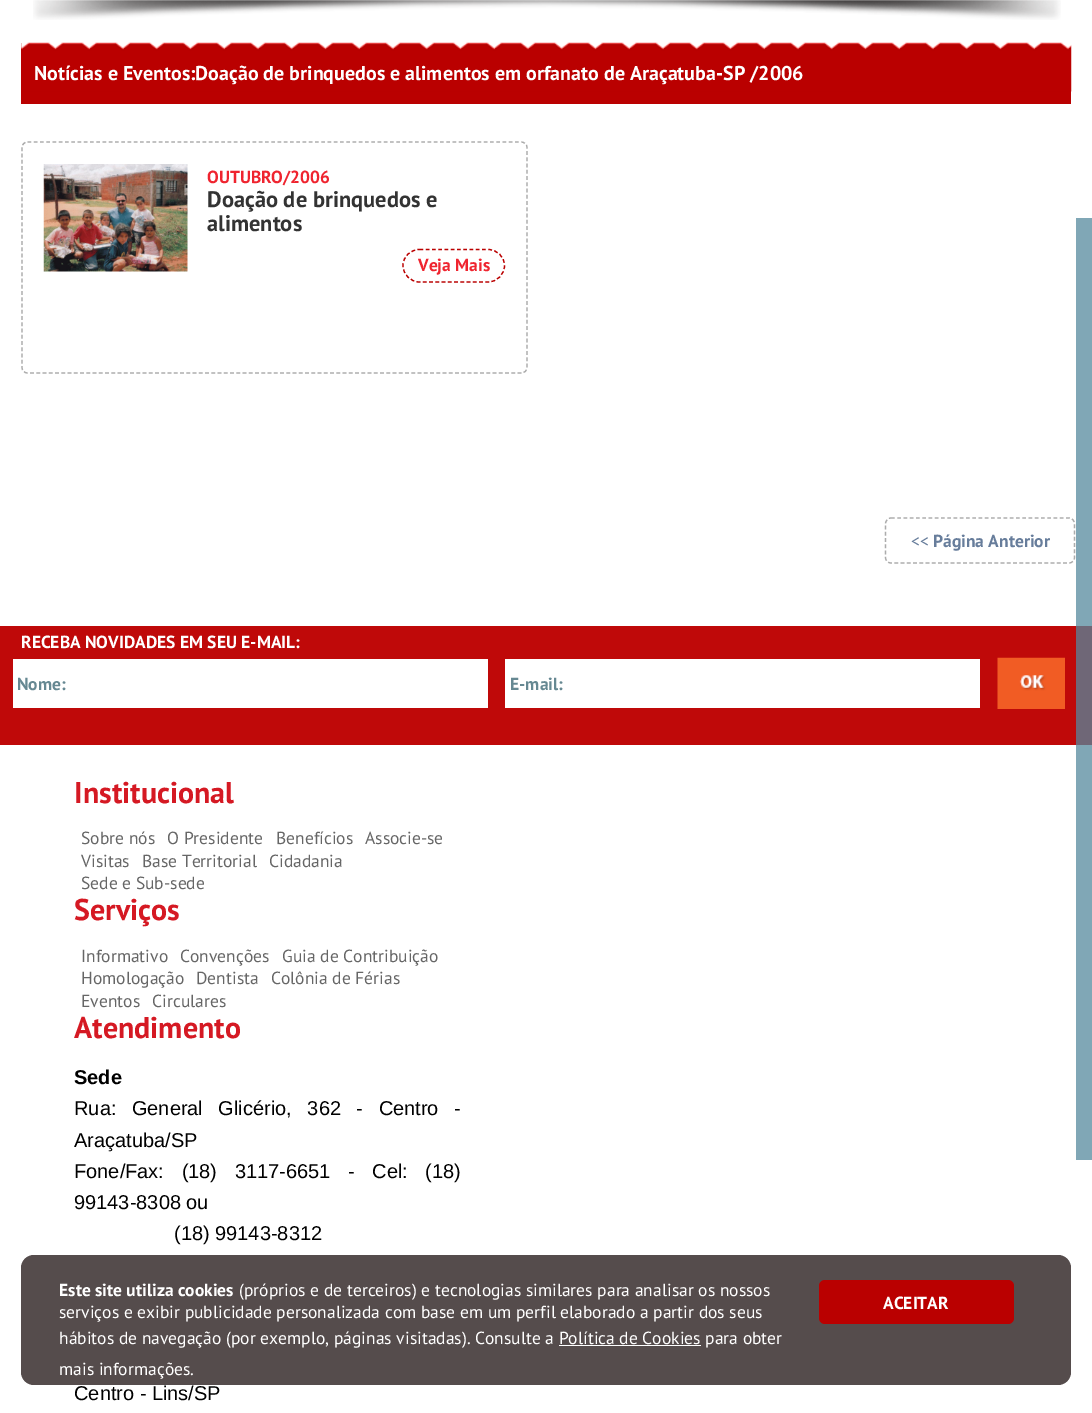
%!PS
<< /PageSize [1092 1413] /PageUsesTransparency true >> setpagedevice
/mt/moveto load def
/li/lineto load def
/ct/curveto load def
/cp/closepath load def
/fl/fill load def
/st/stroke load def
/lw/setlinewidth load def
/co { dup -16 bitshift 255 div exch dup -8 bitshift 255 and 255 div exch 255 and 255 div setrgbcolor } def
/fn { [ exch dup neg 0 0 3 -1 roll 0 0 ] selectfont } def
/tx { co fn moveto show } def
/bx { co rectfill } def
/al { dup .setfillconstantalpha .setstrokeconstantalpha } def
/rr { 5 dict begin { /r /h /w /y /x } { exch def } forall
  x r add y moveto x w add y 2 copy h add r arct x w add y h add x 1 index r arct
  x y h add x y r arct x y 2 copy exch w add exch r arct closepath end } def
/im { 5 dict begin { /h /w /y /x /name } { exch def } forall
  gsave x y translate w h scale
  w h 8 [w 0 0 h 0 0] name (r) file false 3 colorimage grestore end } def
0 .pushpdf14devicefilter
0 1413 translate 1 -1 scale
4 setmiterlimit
0 0 1092 1413 16#FFFFFF bx
(media/1.raw) 33 0 1028 20 im
21 43 1050 61 16#BA0000 bx
(media/2.raw) 21 42 1051 50 im
16#ACACAC co
1.2 lw
[3.75 2.5] 0 setdash
27.5 142 mt 521 142 li 524.5 142 527 144.5 527 147.5 ct 527 367.5 li 527 370.5 524.5 373 521 373 ct 27.5 373 li 24.5 373 22 370.5 22 367.5 ct 22 147.5 li 22 144.5 24.5 142 27.5 142 ct cp st
(media/3.raw) 43 164 145 108 im
16#BA0000 co
419.5 249.5 mt 488 249.5 li 497 249.5 504.5 256.5 504.5 265.5 ct 504.5 274.5 497 282 488 282 ct 419.5 282 li 410.5 282 403 274.5 403 265.5 ct 403 256.5 410.5 249.5 419.5 249.5 ct cp st
16#ACACAC co
891 518 mt 1069 518 li 1072 518 1074.5 520.5 1074.5 524 ct 1074.5 557.5 li 1074.5 560.5 1072 563 1069 563 ct 891 563 li 888 563 885.5 560.5 885.5 557.5 ct 885.5 524 li 885.5 520.5 888 518 891 518 ct cp st
0 626 1092 119 16#BF0909 bx
13 659 475 49 16#FFFFFF bx
505 659 475 49 16#FFFFFF bx
(media/4.raw) 997 657 68 52 im
0.8 al
16#2B1F1F co
21 1255 1050 130 13 rr fl
1 al
559 1345 142 1 16#FFFFFF bx
16#BA0000 co
819 1280 195 44 6 rr fl
0.74 al
1076 218 16 942 16#53889D bx
1 al
(Notícias e Eventos:Doação de brinquedos e alimentos em orfanato de Araçatuba-SP /2006) 34 80 /PTSans-Bold 20 16#FFFFFF tx
(OUTUBRO/2006) 207 183 /PTSans-Bold 17.5 16#EF242F tx
(Doação de brinquedos e) 207 207 /PTSans-Bold 22.5 16#333333 tx
(alimentos) 207 231 /PTSans-Bold 22.5 16#333333 tx
(Veja Mais) 418 271 /PTSans-Bold 17.5 16#EF242F tx
(<<) 911 547 /PTSans-Regular 17.5 16#677D9B tx
(Página Anterior) 933 547 /PTSans-Bold 17.5 16#677D9B tx
(RECEBA NOVIDADES EM SEU E-MAIL:) 21 648 /PTSans-Bold 17.5 16#FFFFFF tx
(Nome:) 17 690 /PTSans-Bold 17.5 16#668892 tx
(E-mail:) 510 690 /PTSans-Bold 17.5 16#668892 tx
(Institucional) 74 803 /PTSans-Bold 30 16#D51923 tx
(Sobre nós) 81 844 /PTSans-Regular 17.5 16#666666 tx
(O Presidente) 167 844 /PTSans-Regular 17.5 16#666666 tx
(Benefícios) 276 844 /PTSans-Regular 17.5 16#666666 tx
(Associe-se) 365 844 /PTSans-Regular 17.5 16#666666 tx
(Visitas) 81 867 /PTSans-Regular 17.5 16#666666 tx
(Base Territorial) 142 867 /PTSans-Regular 17.5 16#666666 tx
(Cidadania) 269 867 /PTSans-Regular 17.5 16#666666 tx
(Sede e Sub-sede) 81 889 /PTSans-Regular 17.5 16#666666 tx
(Serviços) 74 920 /PTSans-Bold 30 16#D51923 tx
(Informativo) 81 962 /PTSans-Regular 17.5 16#666666 tx
(Convenções) 180 962 /PTSans-Regular 17.5 16#666666 tx
(Guia de Contribuição) 282 962 /PTSans-Regular 17.5 16#666666 tx
(Homologação) 81 984 /PTSans-Regular 17.5 16#666666 tx
(Dentista) 196 984 /PTSans-Regular 17.5 16#666666 tx
(Colônia de Férias) 271 984 /PTSans-Regular 17.5 16#666666 tx
(Eventos) 81 1007 /PTSans-Regular 17.5 16#666666 tx
(Circulares) 152 1007 /PTSans-Regular 17.5 16#666666 tx
(Atendimento) 74 1038 /PTSans-Bold 30 16#D51923 tx
(Sede) 74 1084 /LiberationSans-Bold 20 16#000000 tx
/LiberationSans-Regular 20 fn
74 1115 mt 10 0 32 (Rua: General Glicério, 362 - Centro -) widthshow
(Araçatuba/SP) 74 1147 /LiberationSans-Regular 20 16#000000 tx
74 1178 mt 12 0 32 (Fone/Fax: \(18\) 3117-6651 - Cel: \(18\)) widthshow
(99143-8308 ou) 74 1209 /LiberationSans-Regular 20 16#000000 tx
(\(18\) 99143-8312) 174 1240 /LiberationSans-Regular 20 16#000000 tx
(Centro - Lins/SP) 74 1400 /LiberationSans-Regular 20 16#000000 tx
(Este site utiliza cookies) 59 1296 /PTSans-Bold 17.5 16#FFFFFF tx
(\(próprios e de terceiros\) e tecnologias similares para analisar os nossos) 239 1296 /PTSans-Regular 17.5 16#FFFFFF tx
(serviços e exibir publicidade personalizada com base em um perfil elaborado a partir dos seus) 59 1318 /PTSans-Regular 17.5 16#FFFFFF tx
(hábitos de navegação \(por exemplo, páginas visitadas\). Consulte a Política de Cookies para obter) 59 1344 /PTSans-Regular 17.5 16#FFFFFF tx
(mais informações.) 59 1375 /PTSans-Regular 17.5 16#FFFFFF tx
(ACEITAR) 883 1309 /PTSans-Bold 17.5 16#FFFFFF tx
.poppdf14devicefilter showpage
